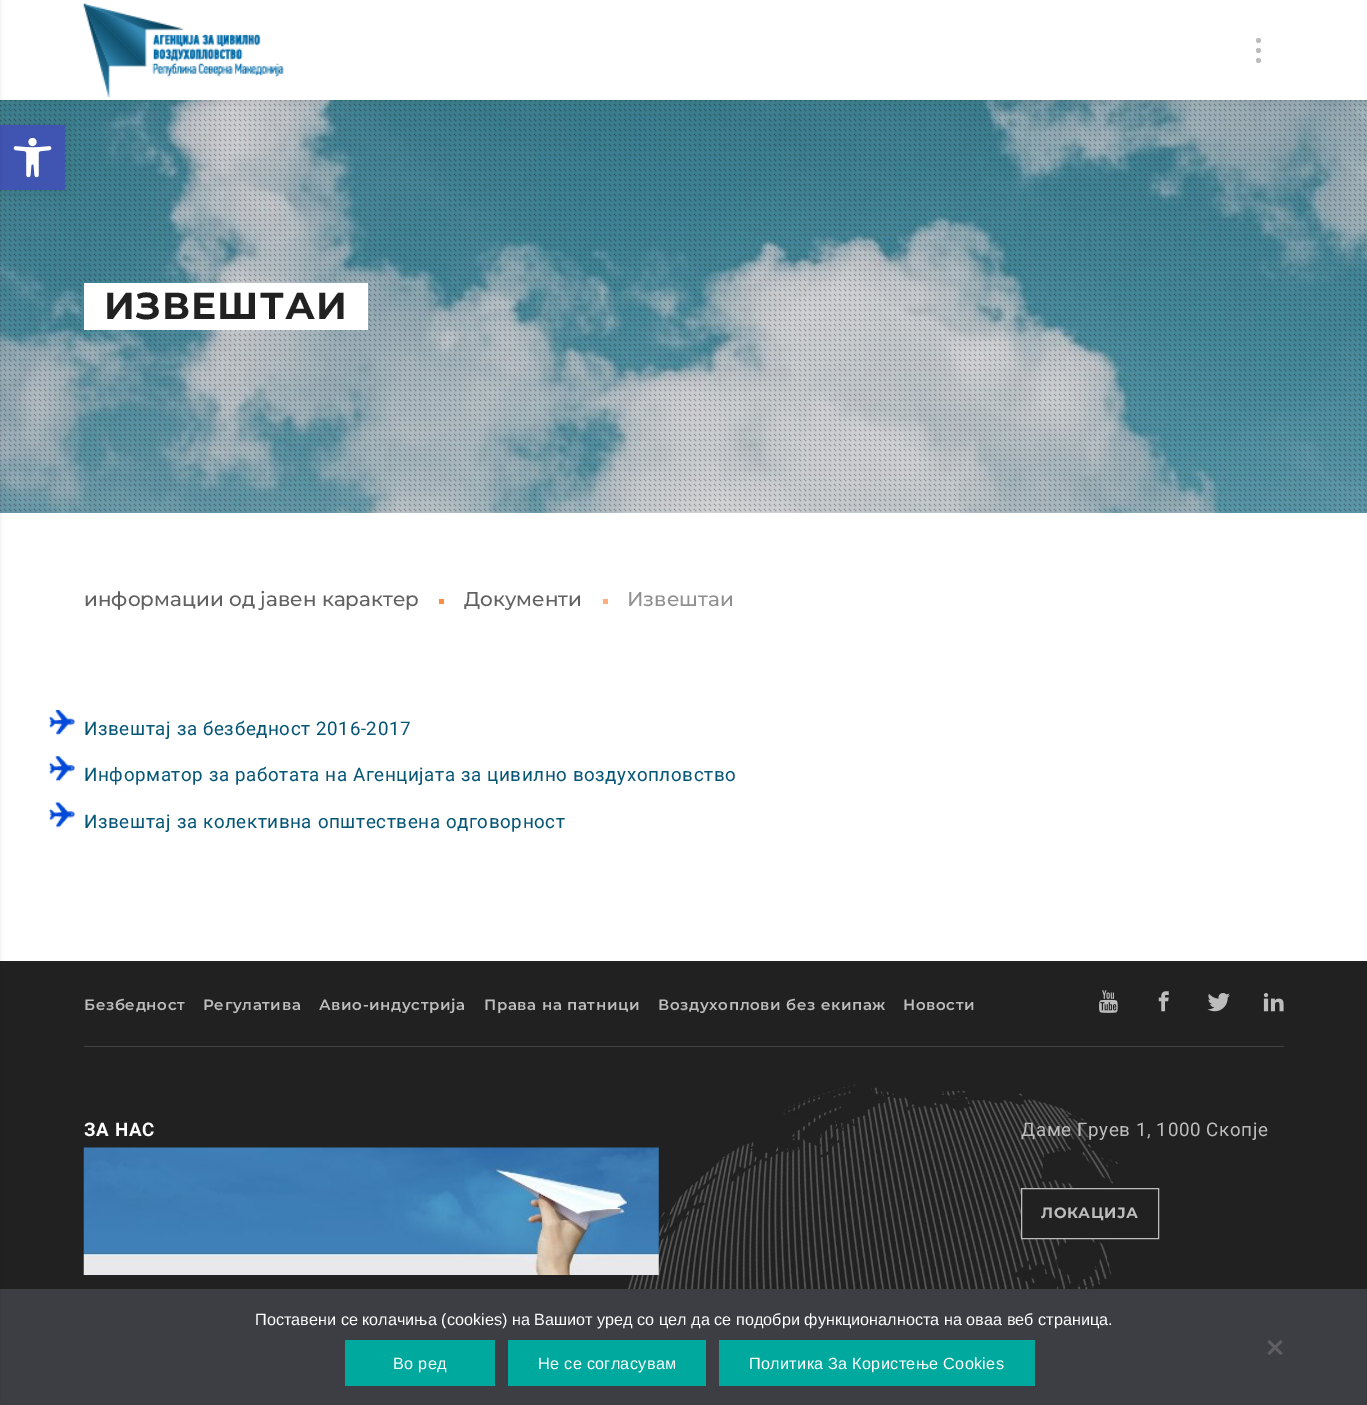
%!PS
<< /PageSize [1367 1405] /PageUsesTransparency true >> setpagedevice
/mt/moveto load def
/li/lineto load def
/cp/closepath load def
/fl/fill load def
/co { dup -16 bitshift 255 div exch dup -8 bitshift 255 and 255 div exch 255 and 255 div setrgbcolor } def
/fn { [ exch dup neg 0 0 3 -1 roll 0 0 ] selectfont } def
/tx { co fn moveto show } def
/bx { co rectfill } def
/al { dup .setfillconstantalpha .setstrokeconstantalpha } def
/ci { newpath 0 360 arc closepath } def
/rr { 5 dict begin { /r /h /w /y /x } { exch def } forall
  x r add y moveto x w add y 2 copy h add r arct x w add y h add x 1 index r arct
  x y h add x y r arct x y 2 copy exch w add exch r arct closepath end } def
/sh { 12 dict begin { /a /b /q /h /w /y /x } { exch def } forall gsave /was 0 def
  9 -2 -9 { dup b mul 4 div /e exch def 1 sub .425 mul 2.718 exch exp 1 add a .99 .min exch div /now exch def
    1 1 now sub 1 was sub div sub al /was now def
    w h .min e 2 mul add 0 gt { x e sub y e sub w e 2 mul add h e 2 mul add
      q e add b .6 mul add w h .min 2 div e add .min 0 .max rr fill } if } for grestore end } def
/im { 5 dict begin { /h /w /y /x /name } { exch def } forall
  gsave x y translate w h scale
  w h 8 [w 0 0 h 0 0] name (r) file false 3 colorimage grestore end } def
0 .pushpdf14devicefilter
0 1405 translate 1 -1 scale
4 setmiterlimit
0 0 1367 1405 16#FFFFFF bx
(media/3.raw) 0 100 1367 413 im
(media/4.raw) 0 100 1367 412 im
16#000000 co
0 125 65 65 0 6 .1 sh
0 125 65 65 16#4054B2 bx
(media/1.raw) 13 138 39 40 im
16#000000 co
0 1 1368 100 0 2 .1 sh
0 0 1367 100 16#FFFFFF bx
0 961 1367 328 16#212121 bx
0 1289 1367 116 16#3D3D44 bx
16#000000 co
-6 1 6 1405 0 2 .1 sh
(media/2.raw) 83 3 201 95 im
16#BDBDBD co
1258.5 50.5 2.5 ci fl
1258.5 40.5 2.5 ci fl
1258.5 60.5 2.5 ci fl
84 283 284 47 16#FFFFFF bx
439 599 5 5 16#FD8C40 bx
603 599 5 5 16#FEAF79 bx
(media/5.raw) 48 710 27 25 im
(media/6.raw) 48 756 27 26 im
(media/7.raw) 48 802 27 26 im
(media/8.raw) 1099 990 19 23 im
(media/9.raw) 1158 991 11 21 im
(media/10.raw) 1207 993 23 19 im
(media/11.raw) 1263 993 21 19 im
84 1046 1200 1 16#424242 bx
(media/12.raw) 606 1084 512 205 im
(media/13.raw) 83 1147 576 128 im
1022 1189 94 49 16#212121 bx
16#BDBDBD co
1021.5 1188.5 137 50 rectstroke
16#5F5F62 co
1280.5 1340 mt 1282.5 1342 li 1269.5 1355 li 1267.5 1353 li cp fl
1267.5 1342 mt 1269.5 1340 li 1282.5 1353 li 1280.5 1355 li cp fl
345 1340 150 46 16#00A99D bx
508 1340 198 46 16#00A99D bx
719 1340 316 46 16#00A99D bx
/Montserrat-Bold 37.5 fn
16#212121 co
104 319 mt 1.25 0 (ИЗВЕШТАИ) ashow
(информации од јавен карактер) 84 606 /Montserrat-Medium 20 16#616161 tx
(Документи) 464 606 /Montserrat-Medium 20 16#616161 tx
(Извештаи) 627 606 /Montserrat-Medium 20 16#909090 tx
/Roboto-Regular 18.75 fn
16#055575 co
84 735 mt .62 0 (Извештај за безбедност 2016-2017) ashow
84 781 mt .62 0 (Информатор за работата на Агенцијата за цивилно воздухопловство) ashow
84 828 mt .62 0 (Извештај за колективна општествена одговорност) ashow
/Montserrat-SemiBold 15 fn
16#BDBDBD co
84 1010 mt .62 0 (Безбедност) ashow
203 1010 mt .62 0 (Регулатива) ashow
319 1010 mt .62 0 (Авио-индустрија) ashow
484 1010 mt .62 0 (Права на патници) ashow
658 1010 mt .62 0 (Воздухоплови без екипаж) ashow
903 1010 mt .62 0 (Новости) ashow
/Roboto-Bold 18.75 fn
16#FFFFFF co
84 1136 mt .62 0 (ЗА НАС) ashow
/Roboto-Regular 18.75 fn
16#BDBDBD co
1021 1136 mt .62 0 (Даме Груев 1, 1000 Скопје) ashow
/Montserrat-Bold 15 fn
1041 1218 mt .62 0 (ЛОКАЦИЈА) ashow
(Поставени се колачиња \(cookies\) на Вашиот уред со цел да се подобри функционалноста на оваа веб страница.) 255 1325 /LiberationSans-Regular 16.25 16#FFFFFF tx
393 1369 mt .3 0 (Во ред) ashow
538 1369 mt .3 0 (Не се согласувам) ashow
749 1369 mt .3 0 (Политика За Користење Cookies) ashow
.poppdf14devicefilter showpage
